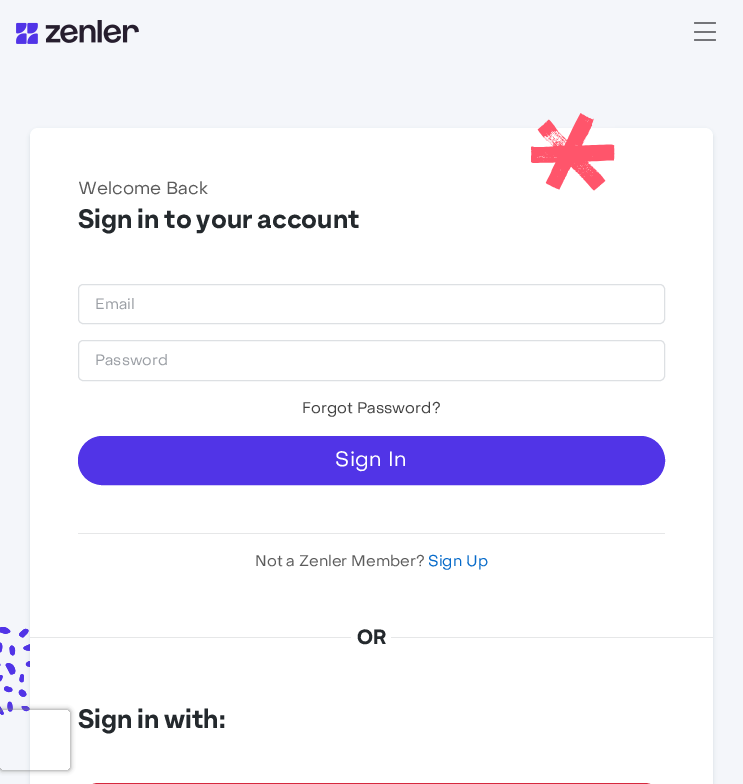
%!PS
<< /PageSize [743 784] /PageUsesTransparency true >> setpagedevice
/mt/moveto load def
/li/lineto load def
/ct/curveto load def
/cp/closepath load def
/fl/fill load def
/st/stroke load def
/gs/gsave load def
/gr/grestore load def
/co { dup -16 bitshift 255 div exch dup -8 bitshift 255 and 255 div exch 255 and 255 div setrgbcolor } def
/fn { [ exch dup neg 0 0 3 -1 roll 0 0 ] selectfont } def
/tx { co fn moveto show } def
/bx { co rectfill } def
/al { dup .setfillconstantalpha .setstrokeconstantalpha } def
/ci { newpath 0 360 arc closepath } def
/rr { 5 dict begin { /r /h /w /y /x } { exch def } forall
  x r add y moveto x w add y 2 copy h add r arct x w add y h add x 1 index r arct
  x y h add x y r arct x y 2 copy exch w add exch r arct closepath end } def
/sh { 12 dict begin { /a /b /q /h /w /y /x } { exch def } forall gsave /was 0 def
  9 -2 -9 { dup b mul 4 div /e exch def 1 sub .425 mul 2.718 exch exp 1 add a .99 .min exch div /now exch def
    1 1 now sub 1 was sub div sub al /was now def
    w h .min e 2 mul add 0 gt { x e sub y e sub w e 2 mul add h e 2 mul add
      q e add b .6 mul add w h .min 2 div e add .min 0 .max rr fill } if } for grestore end } def
/im { 5 dict begin { /h /w /y /x /name } { exch def } forall
  gsave x y translate w h scale
  w h 8 [w 0 0 h 0 0] name (r) file false 3 colorimage grestore end } def
0 .pushpdf14devicefilter
0 784 translate 1 -1 scale
4 setmiterlimit
0 0 743 784 16#F4F6FA bx
(media/1.raw) 16 20 123 24 im
16#747579 co
694 22 22 2 1 rr fl
694 31 22 2 1 rr fl
694 39 22 2 1 rr fl
(media/3.raw) 0 627 30 88 im
16#1D3A53 co
30 130 683 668 8 2 .15 sh
16#FFFFFF co
30 128 683 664 8 rr fl
gs
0 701 mt 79 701 li 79 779 li 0 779 li cp 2 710 mt 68 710 li 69 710 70 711 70 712 ct 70 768 li 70 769 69 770 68 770 ct 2 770 li 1 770 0 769 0 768 ct 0 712 li 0 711 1 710 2 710 ct cp eoclip newpath
16#808080 co
0 710 70 60 2 2.5 1 sh
gr
(media/2.raw) 531 113 84 78 im
16#DDE0E3 co
78.5 284.5 586 39 4.5 rr st
78.5 340.5 586 40 4.5 rr st
16#5134E7 co
78.5 436.5 586 48 24 rr gs fl gr
st
78 533 587 1 16#E6E7E8 bx
30 637 683 1 16#E6E7E8 bx
16#FFFFFF co
371 637 20 ci fl
16#D6293E co
78.5 783.5 586 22 20 rr st
(Welcome Back) 78 194 /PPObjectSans-Regular 17.5 16#5C5C5C tx
(Sign in to your account) 78 228 /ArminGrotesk-ExtraBold 26.5 16#24292D tx
(Email) 95 309 /PPObjectSans-Regular 15 16#9A9EA4 tx
(Password) 95 365 /PPObjectSans-Regular 15 16#9A9EA4 tx
(Forgot Password?) 302 413 /PPObjectSans-Regular 15.4 16#424242 tx
/PPObjectSans-Regular 20.5 fn
16#FFFFFF co
335 466 mt .5 0 (Sign In) ashow
(Not a Zenler Member?) 255 566 /PPObjectSans-Regular 15.4 16#5C5C5C tx
(Sign Up) 428 566 /PPObjectSans-Regular 15.4 16#066AC9 tx
(OR) 357 644 /ArminGrotesk-ExtraBold 20.5 16#24292D tx
(Sign in with:) 78 728 /ArminGrotesk-ExtraBold 26.5 16#24292D tx
.poppdf14devicefilter showpage
